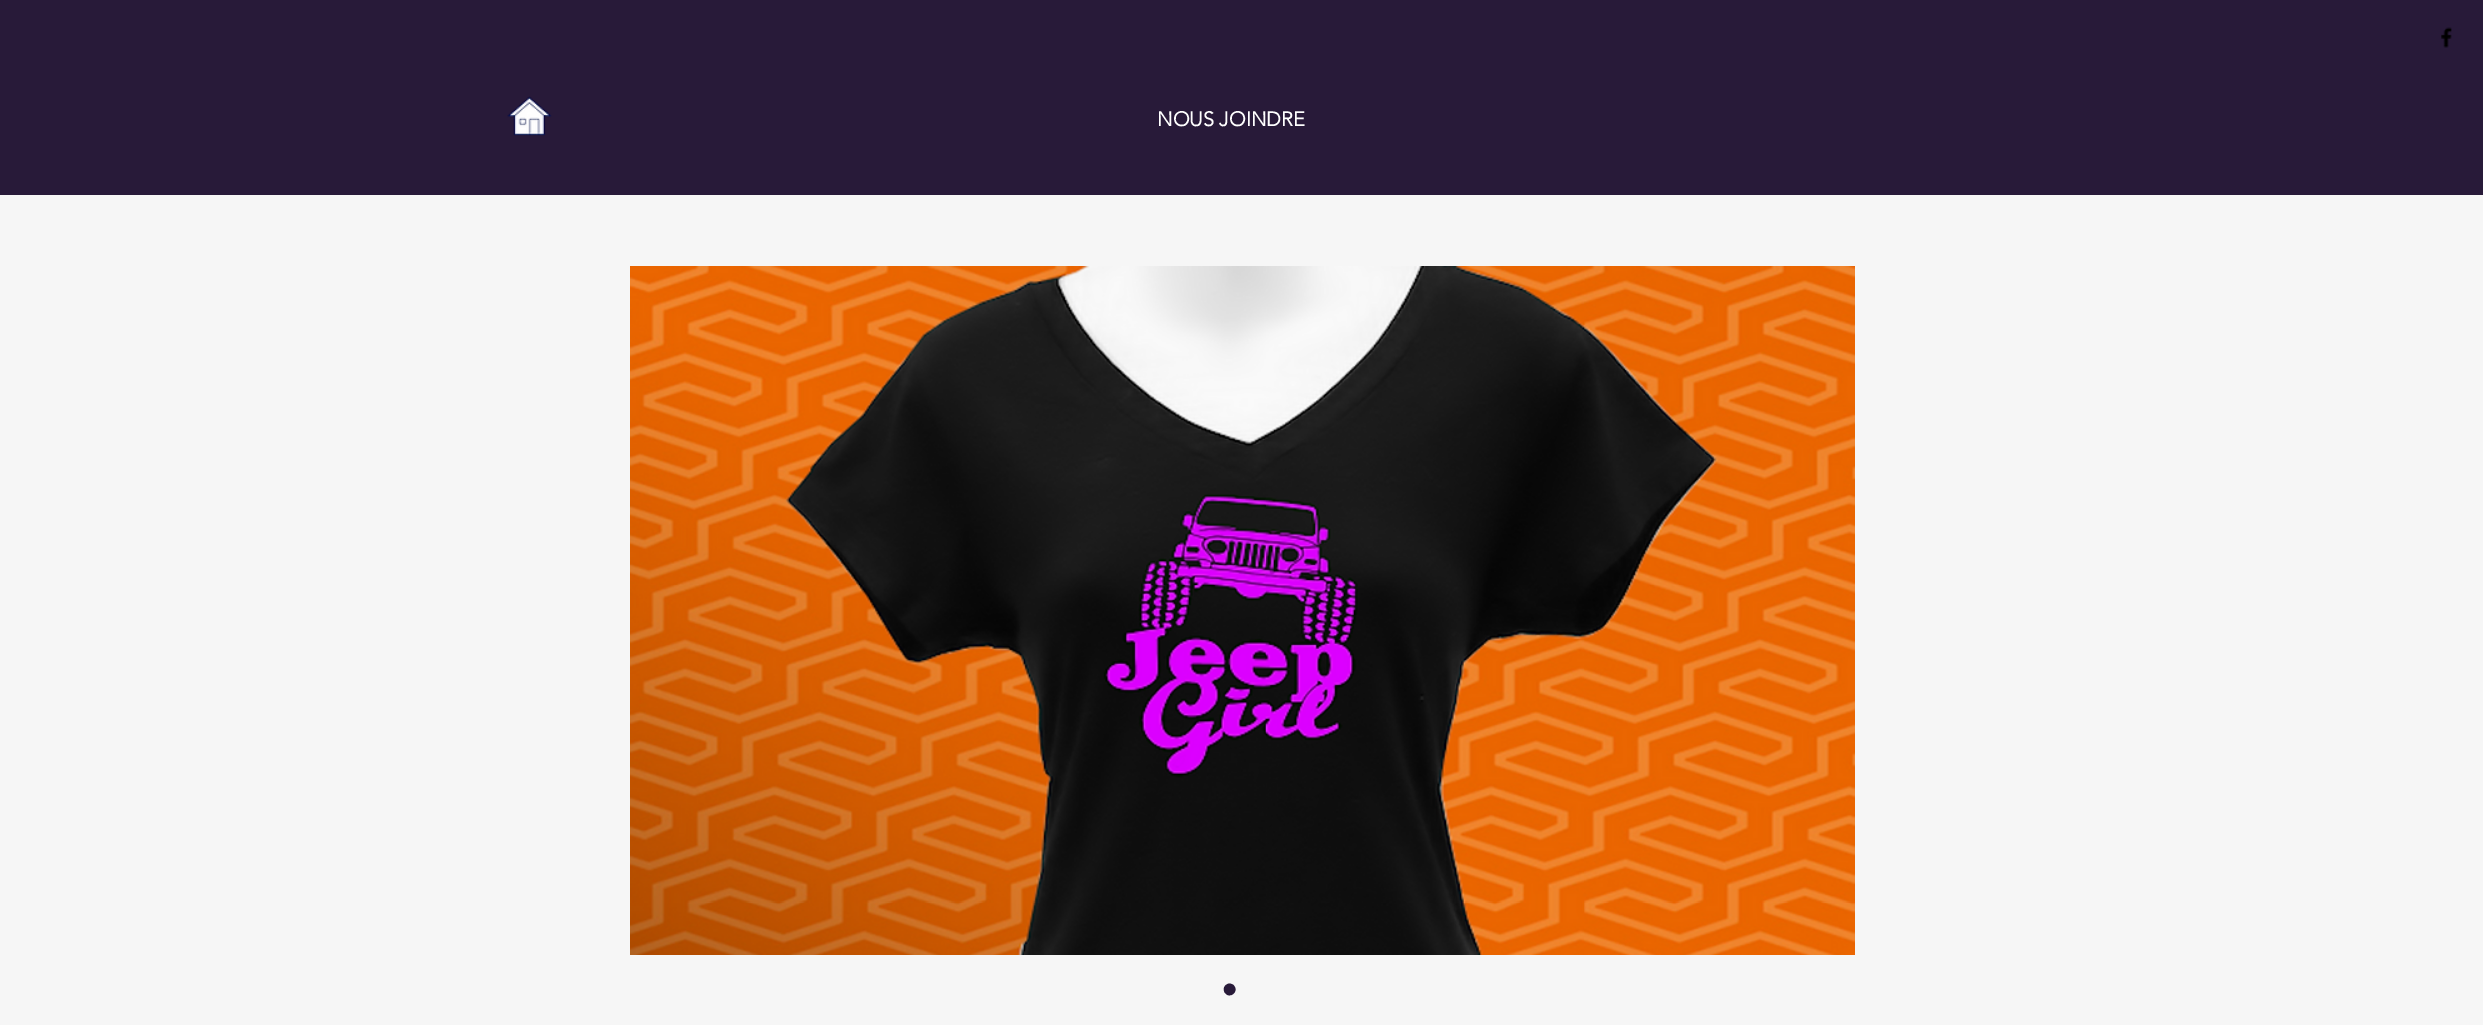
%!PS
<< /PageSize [2483 1025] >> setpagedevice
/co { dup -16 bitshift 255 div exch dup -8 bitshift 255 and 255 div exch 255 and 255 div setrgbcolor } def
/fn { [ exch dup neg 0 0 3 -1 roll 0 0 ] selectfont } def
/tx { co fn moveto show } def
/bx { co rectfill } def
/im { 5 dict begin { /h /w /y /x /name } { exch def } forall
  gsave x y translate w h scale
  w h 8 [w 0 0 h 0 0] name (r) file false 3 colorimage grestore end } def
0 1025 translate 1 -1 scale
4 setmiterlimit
0 0 2483 1025 16#F6F6F6 bx
0 0 2483 195 16#281A39 bx
(media/1.raw) 2441 27 11 21 im
(media/2.raw) 507 96 45 40 im
(media/3.raw) 630 266 1225 689 im
(NOUS JOINDRE) 1157 126 /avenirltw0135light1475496-Bold 20 16#FFFFFF tx
(•) 1222 1004 /LiberationSans-Regular 44 16#281A39 tx
showpage
